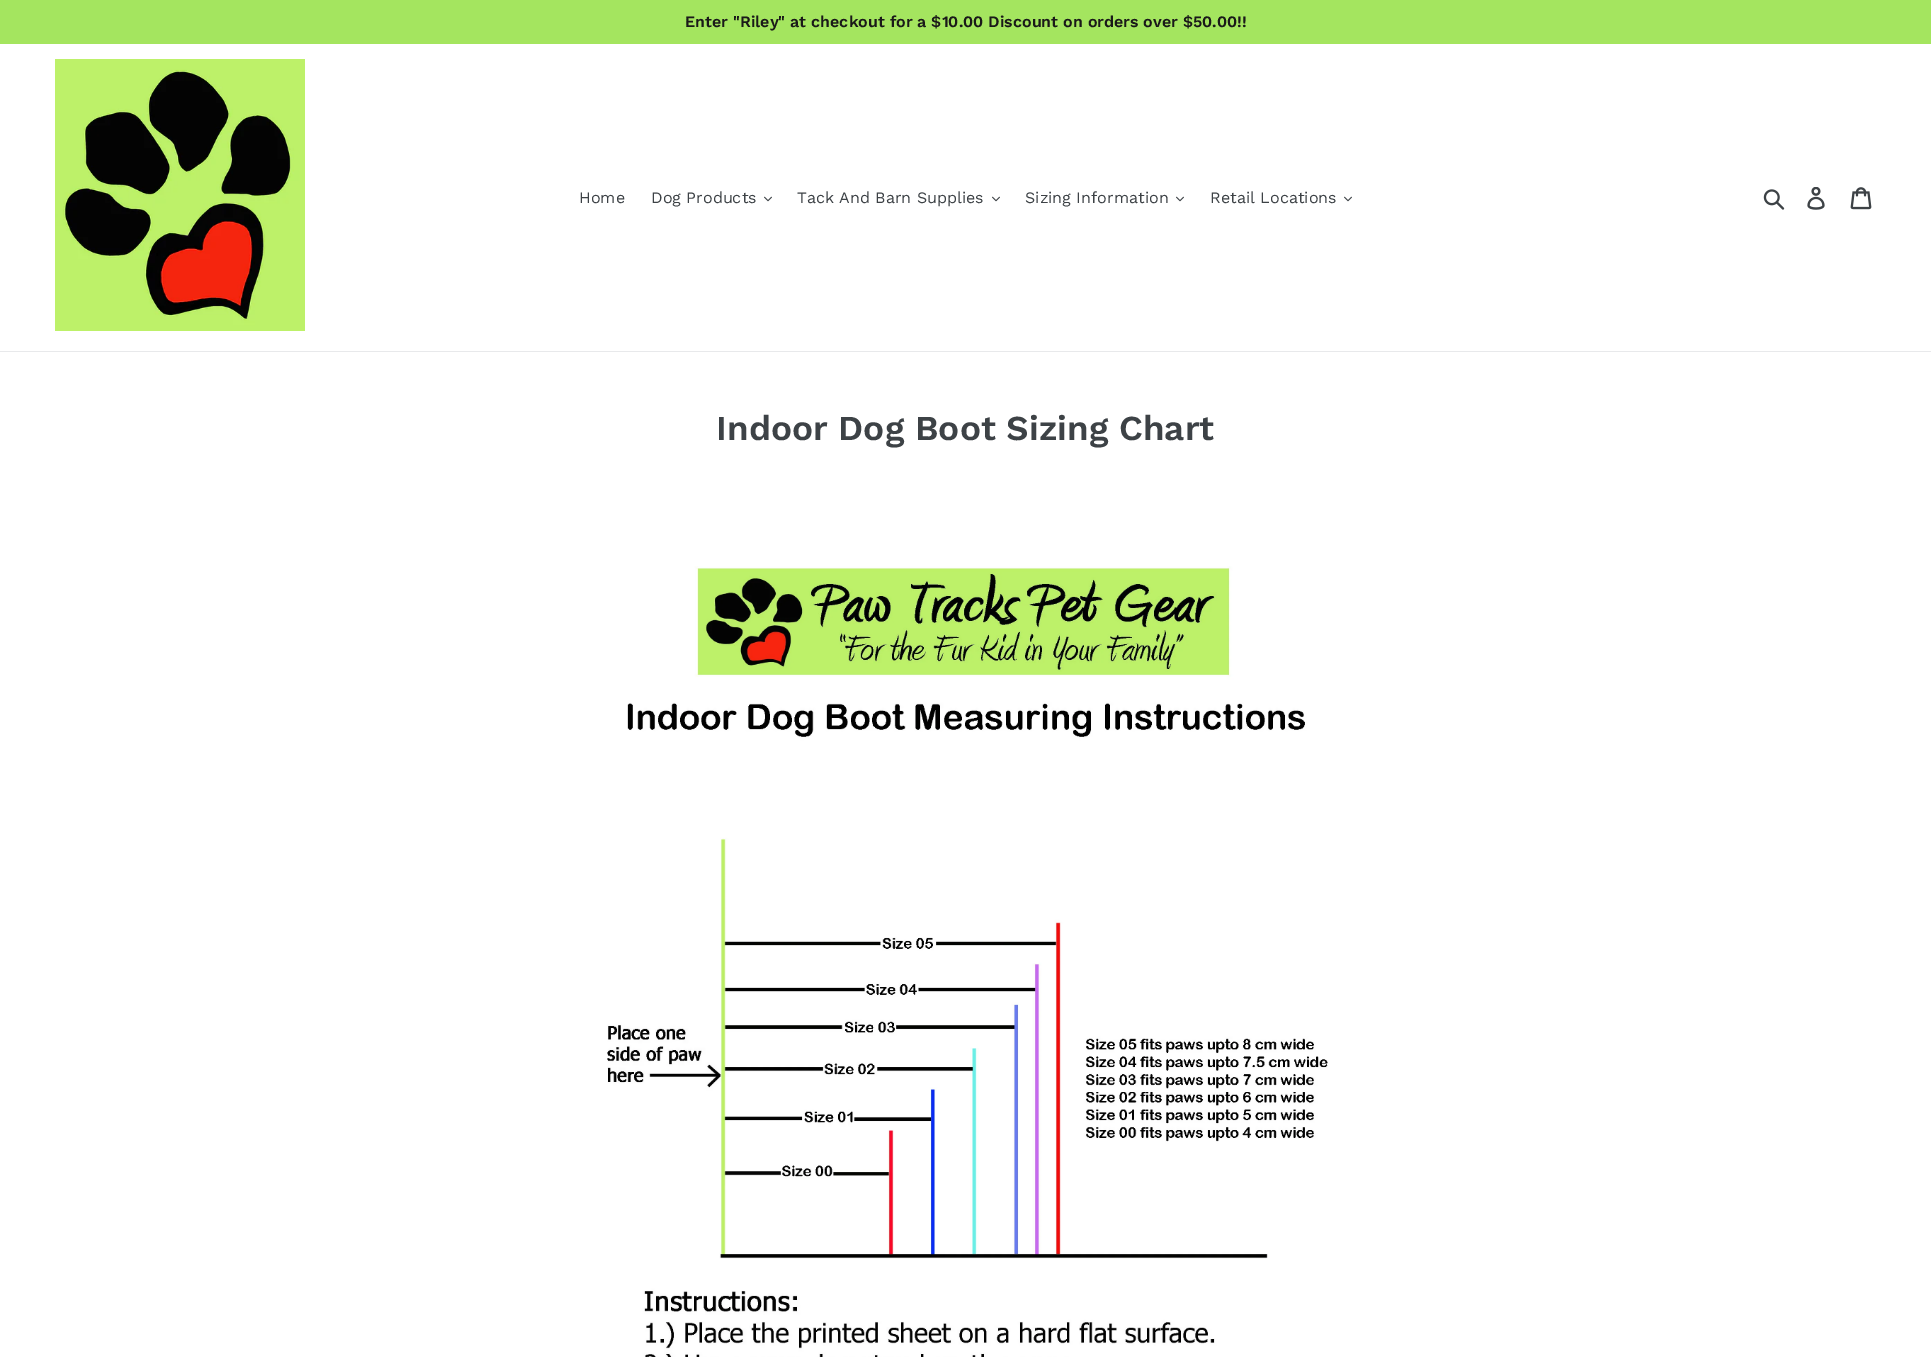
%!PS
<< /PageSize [1931 1357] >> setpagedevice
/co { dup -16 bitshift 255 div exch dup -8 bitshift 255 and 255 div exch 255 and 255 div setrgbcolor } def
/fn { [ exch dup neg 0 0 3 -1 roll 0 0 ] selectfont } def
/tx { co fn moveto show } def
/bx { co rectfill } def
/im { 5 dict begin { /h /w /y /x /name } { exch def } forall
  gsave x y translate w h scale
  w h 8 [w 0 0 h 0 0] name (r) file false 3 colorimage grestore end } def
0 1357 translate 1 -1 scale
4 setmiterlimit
0 0 1931 1357 16#FFFFFF bx
0 0 1931 44 16#A4E55F bx
0 351 1931 1 16#E8E9EB bx
(media/1.raw) 55 59 250 272 im
(media/2.raw) 764 196 8 6 im
(media/2.raw) 992 196 8 6 im
(media/2.raw) 1176 196 8 6 im
(media/2.raw) 1344 196 8 6 im
(media/3.raw) 1763 189 22 21 im
(media/4.raw) 1807 187 18 23 im
(media/5.raw) 1850 187 22 23 im
(media/6.raw) 607 566 721 791 im
(Enter "Riley" at checkout for a $10.00 Discount on orders over $50.00!!) 685 27 /WorkSans-SemiBold 16 16#1A1919 tx
(Home) 579 203 /WorkSans-Regular 16 16#3D4246 tx
(Dog Products) 651 203 /WorkSans-Regular 16 16#3D4246 tx
(Tack And Barn Supplies) 797 203 /WorkSans-Regular 16 16#3D4246 tx
(Sizing Information) 1025 203 /WorkSans-Regular 16 16#3D4246 tx
(Retail Locations) 1210 203 /WorkSans-Regular 16 16#3D4246 tx
(Indoor Dog Boot Sizing Chart) 716 440 /WorkSans-SemiBold 35 16#3D4246 tx
showpage
